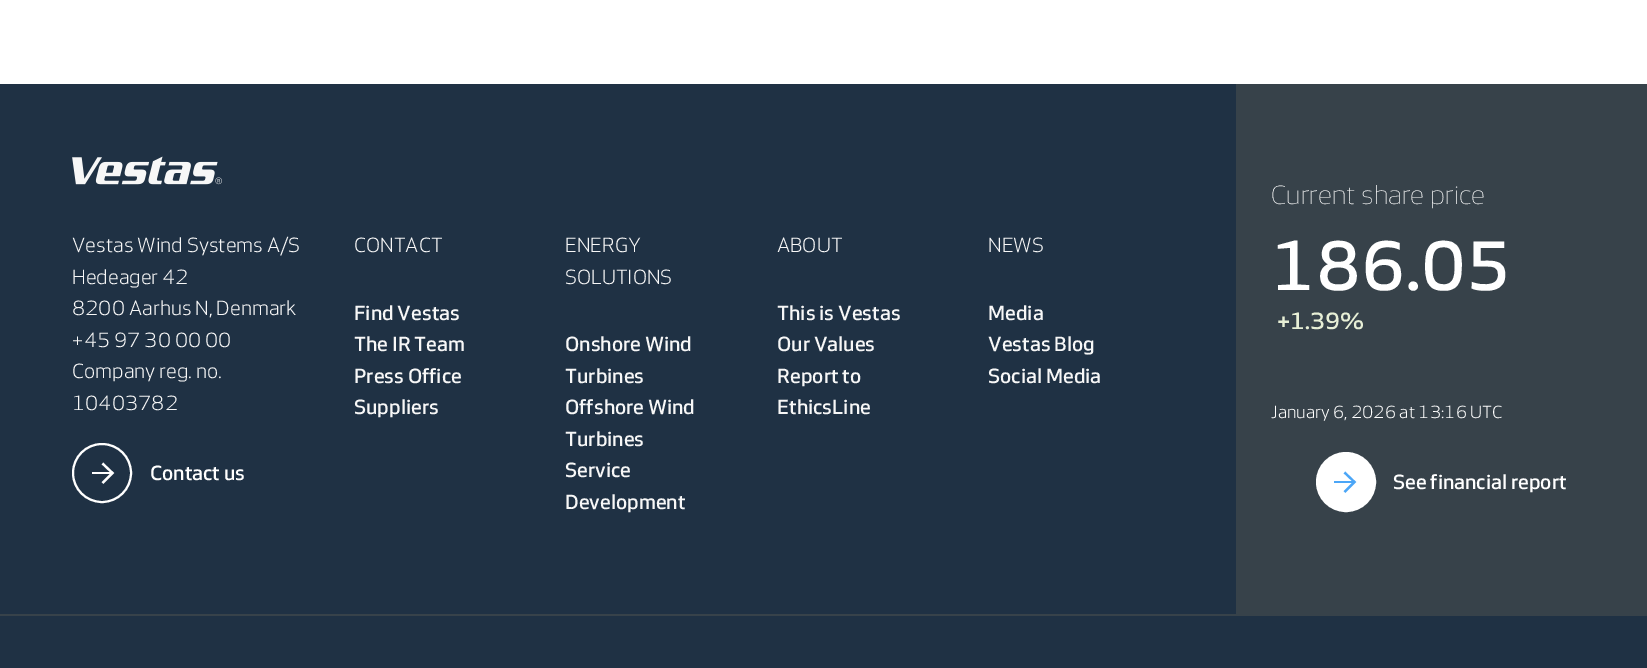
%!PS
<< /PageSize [1647 668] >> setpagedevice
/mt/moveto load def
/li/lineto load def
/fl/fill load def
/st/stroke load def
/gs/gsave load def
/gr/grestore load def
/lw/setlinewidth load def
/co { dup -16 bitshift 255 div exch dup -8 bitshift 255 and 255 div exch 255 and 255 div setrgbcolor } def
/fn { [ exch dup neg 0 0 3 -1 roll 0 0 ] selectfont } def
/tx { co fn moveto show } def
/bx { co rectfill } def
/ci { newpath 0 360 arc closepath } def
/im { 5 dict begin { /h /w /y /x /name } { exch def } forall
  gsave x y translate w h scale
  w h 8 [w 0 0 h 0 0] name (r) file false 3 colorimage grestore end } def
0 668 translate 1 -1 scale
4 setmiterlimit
0 0 1647 668 16#FFFFFF bx
0 84 1647 584 16#1F3144 bx
(media/1.raw) 72 156 150 29 im
16#FFFFFF co
2 lw
102 473 29 ci st
2.2 lw
102.5 463.5 mt 112.5 473 li 102.5 483 li st
92 472 21 2 16#FFFFFF bx
1236 84 411 530 16#37424A bx
16#FFFFFF co
1346 482 29 ci gs fl gr
2 lw
st
16#4BA6F7 co
2.2 lw
1344.5 472.5 mt 1354.5 482 li 1344.5 492 li st
1334 481 21 2 16#4BA6F7 bx
0 614 1647 2 16#37424A bx
(Vestas Wind Systems A/S) 72 252 /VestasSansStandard-Regular 21 16#F7F7F7 tx
(Hedeager 42) 72 284 /VestasSansStandard-Regular 21 16#F7F7F7 tx
(8200 Aarhus N, Denmark) 72 315 /VestasSansStandard-Regular 21 16#F7F7F7 tx
(+45 97 30 00 00) 72 347 /VestasSansStandard-Regular 21 16#F7F7F7 tx
(Company reg. no.) 72 378 /VestasSansStandard-Regular 21 16#F7F7F7 tx
(10403782) 72 410 /VestasSansStandard-Regular 21 16#F7F7F7 tx
(Contact us) 150 480 /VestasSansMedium-Medium 21 16#FFFFFF tx
(CONTACT) 354 252 /VestasSansStandard-Regular 21 16#F7F7F7 tx
(Find Vestas) 354 320 /VestasSansMedium-Medium 21 16#F7F7F7 tx
(The IR Team) 354 351 /VestasSansMedium-Medium 21 16#F7F7F7 tx
(Press Office) 354 383 /VestasSansMedium-Medium 21 16#F7F7F7 tx
(Suppliers) 354 414 /VestasSansMedium-Medium 21 16#F7F7F7 tx
(ENERGY) 565 252 /VestasSansStandard-Regular 21 16#F7F7F7 tx
(SOLUTIONS) 565 284 /VestasSansStandard-Regular 21 16#F7F7F7 tx
(Onshore Wind) 565 351 /VestasSansMedium-Medium 21 16#F7F7F7 tx
(Turbines) 565 383 /VestasSansMedium-Medium 21 16#F7F7F7 tx
(Offshore Wind) 565 414 /VestasSansMedium-Medium 21 16#F7F7F7 tx
(Turbines) 565 446 /VestasSansMedium-Medium 21 16#F7F7F7 tx
(Service) 565 477 /VestasSansMedium-Medium 21 16#F7F7F7 tx
(Development) 565 509 /VestasSansMedium-Medium 21 16#F7F7F7 tx
(ABOUT) 777 252 /VestasSansStandard-Regular 21 16#F7F7F7 tx
(This is Vestas) 777 320 /VestasSansMedium-Medium 21 16#F7F7F7 tx
(Our Values) 777 351 /VestasSansMedium-Medium 21 16#F7F7F7 tx
(Report to) 777 383 /VestasSansMedium-Medium 21 16#F7F7F7 tx
(EthicsLine) 777 414 /VestasSansMedium-Medium 21 16#F7F7F7 tx
(NEWS) 988 252 /VestasSansStandard-Regular 21 16#F7F7F7 tx
(Media) 988 320 /VestasSansMedium-Medium 21 16#F7F7F7 tx
(Vestas Blog) 988 351 /VestasSansMedium-Medium 21 16#F7F7F7 tx
(Social Media) 988 383 /VestasSansMedium-Medium 21 16#F7F7F7 tx
(Current share price) 1271 204 /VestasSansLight-Light 27 16#FFFFFF tx
(186.05) 1271 290 /VestasSansMedium-Medium 71.5 16#FFFFFF tx
(+1.39%) 1277 329 /VestasSansMedium-Medium 24 16#E7EFD6 tx
(January 6, 2026 at 13:16 UTC) 1271 418 /VestasSansStandard-Regular 18 16#FFFFFF tx
(See financial report) 1393 489 /VestasSansMedium-Medium 21 16#FFFFFF tx
showpage
